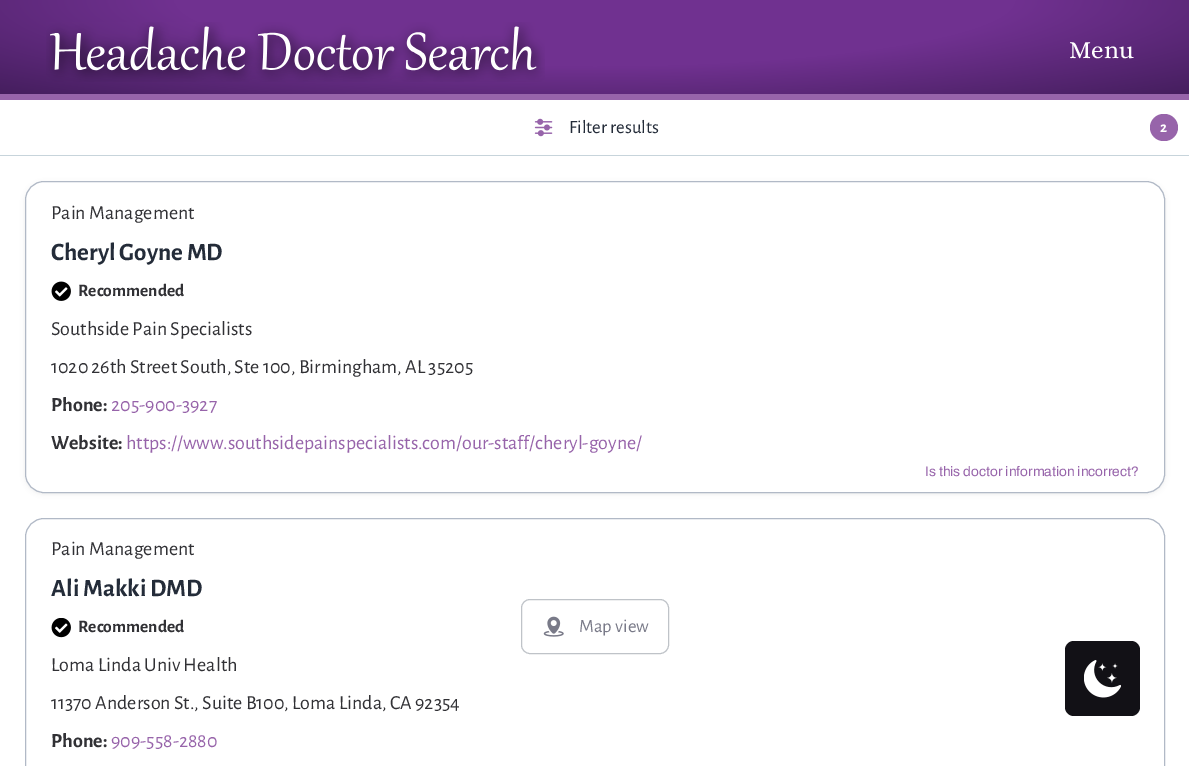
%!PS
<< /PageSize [1189 766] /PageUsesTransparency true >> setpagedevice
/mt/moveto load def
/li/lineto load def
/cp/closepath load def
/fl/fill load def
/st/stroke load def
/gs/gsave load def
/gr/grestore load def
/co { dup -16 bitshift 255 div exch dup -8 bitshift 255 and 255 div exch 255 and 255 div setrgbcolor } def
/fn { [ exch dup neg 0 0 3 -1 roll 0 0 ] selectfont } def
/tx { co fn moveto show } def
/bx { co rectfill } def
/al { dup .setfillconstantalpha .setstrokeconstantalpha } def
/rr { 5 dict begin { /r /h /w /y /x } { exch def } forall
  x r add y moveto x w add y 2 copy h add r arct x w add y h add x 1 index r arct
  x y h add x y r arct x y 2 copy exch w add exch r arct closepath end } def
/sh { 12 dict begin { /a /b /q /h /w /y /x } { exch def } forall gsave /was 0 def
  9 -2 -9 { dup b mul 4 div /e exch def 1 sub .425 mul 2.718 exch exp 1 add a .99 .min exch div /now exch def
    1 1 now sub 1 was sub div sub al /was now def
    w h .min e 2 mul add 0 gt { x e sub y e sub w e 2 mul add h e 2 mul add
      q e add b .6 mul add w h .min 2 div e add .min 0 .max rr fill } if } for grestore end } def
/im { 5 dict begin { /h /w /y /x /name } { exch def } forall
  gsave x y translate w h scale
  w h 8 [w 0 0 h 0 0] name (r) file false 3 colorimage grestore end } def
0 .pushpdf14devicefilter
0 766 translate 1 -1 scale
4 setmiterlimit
0 0 1189 766 16#FFFFFF bx
gs 0 0 mt 1189 0 li 1189 94 li 0 94 li cp clip newpath 595 0 translate 841 133 scale
<< /ShadingType 3 /ColorSpace /DeviceRGB /Coords [0 0 0 0 0 1] /Extend [true true] /Function << /FunctionType 3 /Domain [0 1] /Functions [<< /FunctionType 2 /Domain [0 1] /C0 [.439 .192 .565] /C1 [.439 .192 .565] /N 1 >> << /FunctionType 2 /Domain [0 1] /C0 [.439 .192 .565] /C1 [.271 .118 .369] /N 1 >>] /Bounds [.5] /Encode [0 1 0 1] >> >> shfill gr
0 94 1189 6 16#9764AA bx
(media/1.raw) 46 22 499 60 im
0 155 1189 1 16#C7D4DB bx
(media/2.raw) 534 118 19 19 im
16#9764AA co
1150 114 28 27 13.5 rr fl
16#000000 co
25 183 1140 311 19 2.5 .07 sh
16#FFFFFF co
25.5 181.5 1139 311 18.5 rr gs fl gr
16#B1B9C6 co
st
(media/3.raw) 51 281 20 20 im
25.5 518.5 1139 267 18.5 rr st
(media/4.raw) 51 618 20 20 im
16#BFC3C8 co
521.5 599.5 147 54 8.5 rr st
(media/5.raw) 543 616 21 21 im
16#121116 co
1065 641 75 75 9 rr fl
(media/6.raw) 1084 660 37 38 im
(Menu) 1069 58 /Alice-Regular 25 16#FFFFFF tx
(Filter results) 569 133 /AlegreyaSans-Regular 18.75 16#242C39 tx
(2) 1160 132 /AlegreyaSans-Bold 15 16#FFFFFF tx
(Pain Management) 51 219 /AlegreyaSans-Regular 20 16#313135 tx
(Cheryl Goyne MD) 51 260 /AlegreyaSans-Bold 25 16#242C39 tx
(Recommended) 78 296 /AlegreyaSans-Bold 17.5 16#313135 tx
(Southside Pain Specialists) 51 335 /AlegreyaSans-Regular 20 16#313135 tx
(1020 26th Street South, Ste 100, Birmingham, AL 35205) 51 373 /AlegreyaSans-Regular 20 16#313135 tx
(Phone:) 51 411 /AlegreyaSans-Bold 20 16#313135 tx
(205-900-3927) 111 411 /AlegreyaSans-Regular 20 16#9764AA tx
(Website:) 51 449 /AlegreyaSans-Bold 20 16#313135 tx
(https://www.southsidepainspecialists.com/our-staff/cheryl-goyne/) 126 449 /AlegreyaSans-Regular 20 16#9764AA tx
(Is this doctor information incorrect?) 925 476 /Archivo-Regular 13.75 16#9764AA tx
(Pain Management) 51 555 /AlegreyaSans-Regular 20 16#313135 tx
(Ali Makki DMD) 51 596 /AlegreyaSans-Bold 25 16#242C39 tx
(Recommended) 78 632 /AlegreyaSans-Bold 17.5 16#313135 tx
(Loma Linda Univ Health) 51 671 /AlegreyaSans-Regular 20 16#313135 tx
(11370 Anderson St., Suite B100, Loma Linda, CA 92354) 51 709 /AlegreyaSans-Regular 20 16#313135 tx
(Phone:) 51 747 /AlegreyaSans-Bold 20 16#313135 tx
(909-558-2880) 111 747 /AlegreyaSans-Regular 20 16#9764AA tx
(Map view) 579 632 /AlegreyaSans-Regular 18.75 16#797A88 tx
.poppdf14devicefilter showpage
